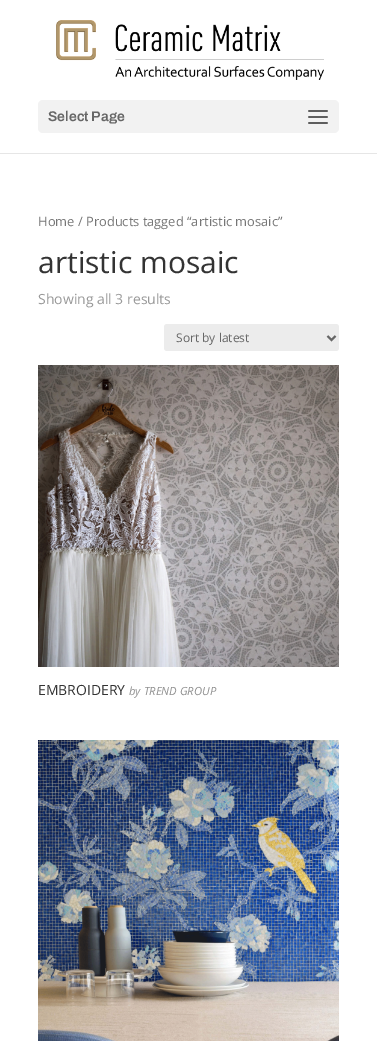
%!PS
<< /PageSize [377 1048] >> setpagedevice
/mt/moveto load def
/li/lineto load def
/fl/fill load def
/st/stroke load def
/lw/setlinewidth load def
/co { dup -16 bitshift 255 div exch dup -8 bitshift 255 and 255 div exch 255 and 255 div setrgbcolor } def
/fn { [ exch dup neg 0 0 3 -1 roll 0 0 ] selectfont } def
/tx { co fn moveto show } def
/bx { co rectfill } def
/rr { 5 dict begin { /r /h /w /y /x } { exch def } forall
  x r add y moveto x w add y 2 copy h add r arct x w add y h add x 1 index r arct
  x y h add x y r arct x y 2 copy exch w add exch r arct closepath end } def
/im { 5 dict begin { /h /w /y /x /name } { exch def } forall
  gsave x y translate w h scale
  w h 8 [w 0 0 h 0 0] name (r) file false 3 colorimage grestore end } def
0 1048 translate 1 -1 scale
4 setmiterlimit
0 0 377 1048 16#FFFFFF bx
0 153 377 1 16#E6E6E6 bx
(media/1.raw) 56 20 268 60 im
16#F2F2F2 co
38 100 301 33 5 rr fl
(media/2.raw) 308 110 20 14 im
16#ECECEC co
164 324 175 27 3 rr fl
16#666666 co
2 lw
327.5 336 mt 331.5 340 li 335.5 336 li st
(media/3.raw) 38 365 301 302 im
(media/4.raw) 38 740 301 301 im
(Select Page) 48 121 /Archivo-SemiBold 14 16#666666 tx
(Home / Products tagged “artistic mosaic”) 38 226 /OpenSans-Regular 12.9 16#767676 tx
(artistic mosaic) 38 273 /OpenSans-Regular 30 16#333333 tx
(Showing all 3 results) 38 304 /OpenSans-Regular 14 16#999999 tx
(Sort by latest) 176 342 /OpenSans-Regular 12 16#666666 tx
(EMBROIDERY) 38 695 /OpenSans-Regular 14 16#333333 tx
(by TREND GROUP) 129 695 /OpenSans-Italic 11.25 16#909090 tx
showpage
